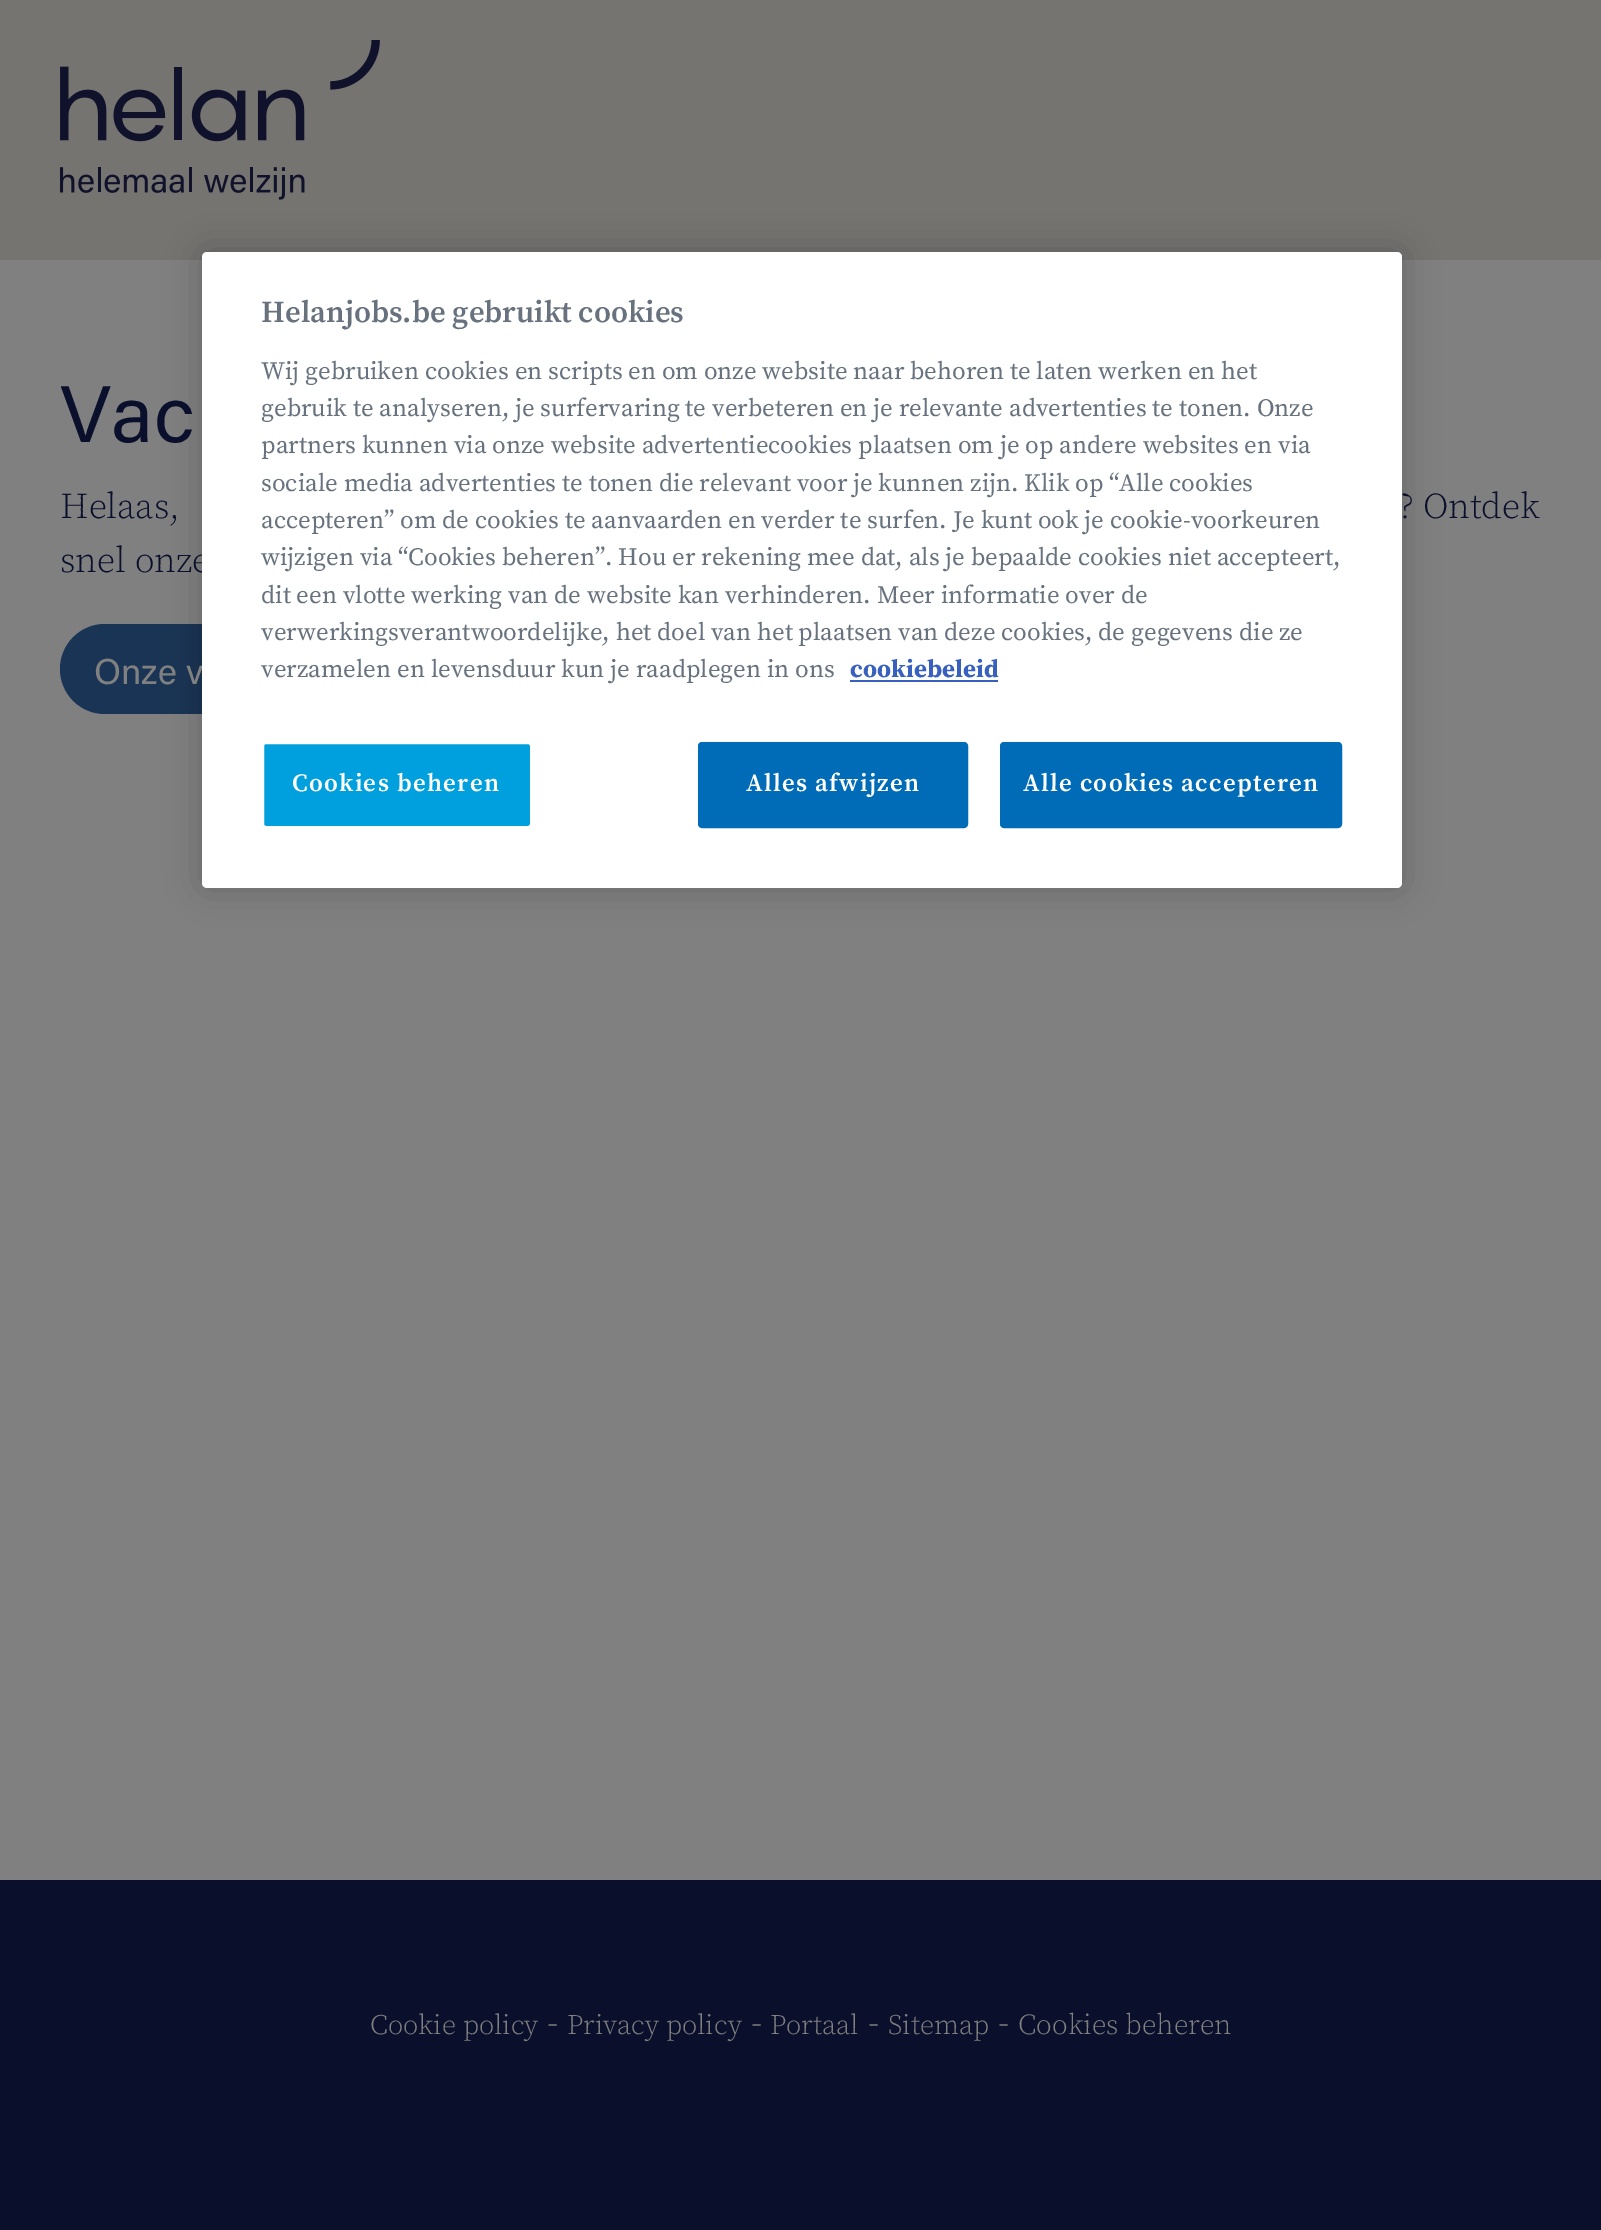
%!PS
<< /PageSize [1601 2230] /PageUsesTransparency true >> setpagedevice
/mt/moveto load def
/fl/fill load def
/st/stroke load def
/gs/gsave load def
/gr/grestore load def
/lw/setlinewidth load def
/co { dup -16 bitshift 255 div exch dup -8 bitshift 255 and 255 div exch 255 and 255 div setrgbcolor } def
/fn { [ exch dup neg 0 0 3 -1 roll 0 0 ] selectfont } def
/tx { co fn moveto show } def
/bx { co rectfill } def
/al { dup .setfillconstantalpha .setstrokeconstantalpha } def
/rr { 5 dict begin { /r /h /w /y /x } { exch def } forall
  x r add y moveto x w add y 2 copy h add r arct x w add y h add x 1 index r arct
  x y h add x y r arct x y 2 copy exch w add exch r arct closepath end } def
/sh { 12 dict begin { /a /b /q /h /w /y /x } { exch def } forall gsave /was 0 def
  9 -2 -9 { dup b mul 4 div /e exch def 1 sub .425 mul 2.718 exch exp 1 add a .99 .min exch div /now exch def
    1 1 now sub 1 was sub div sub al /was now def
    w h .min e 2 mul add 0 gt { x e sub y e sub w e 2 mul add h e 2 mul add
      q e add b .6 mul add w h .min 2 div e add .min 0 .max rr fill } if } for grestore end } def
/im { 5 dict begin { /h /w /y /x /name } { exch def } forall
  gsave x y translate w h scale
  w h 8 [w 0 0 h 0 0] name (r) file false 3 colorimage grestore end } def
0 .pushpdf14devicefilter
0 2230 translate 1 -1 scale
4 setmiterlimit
0 0 1601 2230 16#808080 bx
0 0 1601 260 16#757471 bx
(media/1.raw) 60 40 320 160 im
16#1A3455 co
60 624 314 90 45 rr fl
16#000000 co
202 252 1200 636 5 18 .2 sh
0 1880 1601 350 16#0A0F2B bx
(Vac) 60 442 /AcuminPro-Regular 80 16#0A0F2B tx
(Helaas,) 60 518 /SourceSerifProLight-Light 36 16#0A0F2B tx
(? Ontdek) 1400 518 /SourceSerifProLight-Light 36 16#0A0F2B tx
(snel onze) 60 572 /SourceSerifProLight-Light 36 16#0A0F2B tx
(Onze v) 94 684 /AcuminPro-Regular 36 16#808080 tx
16#FFFFFF co
202 252 1200 636 5 rr fl
16#00A0DF co
263 743 268 84 3 rr gs fl gr
16#FFFFFF co
2 lw
st
/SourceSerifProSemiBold-SemiBold 24.9 fn
292 791 mt 1.25 0 (Cookies beheren) ashow
16#006CB7 co
1001 743 340 84 3 rr gs fl gr
st
16#FFFFFF co
1023 791 mt 1.25 0 (Alle cookies accepteren) ashow
16#006CB7 co
699 743 268 84 3 rr gs fl gr
st
16#FFFFFF co
746 791 mt 1.25 0 (Alles afwijzen) ashow
(cookiebeleid) 850 677 /SourceSerifPro-Bold 24.9 16#3860BE tx
850 680 148 2 16#3860BE bx
(verzamelen en levensduur kun je raadplegen in ons) 261 677 /SourceSerifPro-Regular 24.9 16#67727E tx
(verwerkingsverantwoordelijke, het doel van het plaatsen van deze cookies, de gegevens die ze) 261 640 /SourceSerifPro-Regular 24.9 16#67727E tx
(dit een vlotte werking van de website kan verhinderen. Meer informatie over de) 261 603 /SourceSerifPro-Regular 24.9 16#67727E tx
(wijzigen via “Cookies beheren”. Hou er rekening mee dat, als je bepaalde cookies niet accepteert,) 261 565 /SourceSerifPro-Regular 24.9 16#67727E tx
(accepteren” om de cookies te aanvaarden en verder te surfen. Je kunt ook je cookie-voorkeuren) 261 528 /SourceSerifPro-Regular 24.9 16#67727E tx
(sociale media advertenties te tonen die relevant voor je kunnen zijn. Klik op “Alle cookies) 261 491 /SourceSerifPro-Regular 24.9 16#67727E tx
(partners kunnen via onze website advertentiecookies plaatsen om je op andere websites en via) 261 453 /SourceSerifPro-Regular 24.9 16#67727E tx
(gebruik te analyseren, je surfervaring te verbeteren en je relevante advertenties te tonen. Onze) 261 416 /SourceSerifPro-Regular 24.9 16#67727E tx
(Wij gebruiken cookies en scripts en om onze website naar behoren te laten werken en het) 261 379 /SourceSerifPro-Regular 24.9 16#67727E tx
(Helanjobs.be gebruikt cookies) 261 322 /SourceSerifProSemiBold-SemiBold 30.6 16#67727E tx
(Cookie policy) 370 2034 /SourceSerifProLight-Light 28 16#808080 tx
(-) 547 2034 /SourceSerifProLight-Light 36 16#808080 tx
(Privacy policy) 567 2034 /SourceSerifProLight-Light 28 16#808080 tx
(-) 751 2034 /SourceSerifProLight-Light 36 16#808080 tx
(Portaal) 770 2034 /SourceSerifProLight-Light 28 16#808080 tx
(-) 868 2034 /SourceSerifProLight-Light 36 16#808080 tx
(Sitemap) 888 2034 /SourceSerifProLight-Light 28 16#808080 tx
(-) 998 2034 /SourceSerifProLight-Light 36 16#808080 tx
(Cookies beheren) 1018 2034 /SourceSerifProLight-Light 28.75 16#808080 tx
.poppdf14devicefilter showpage
